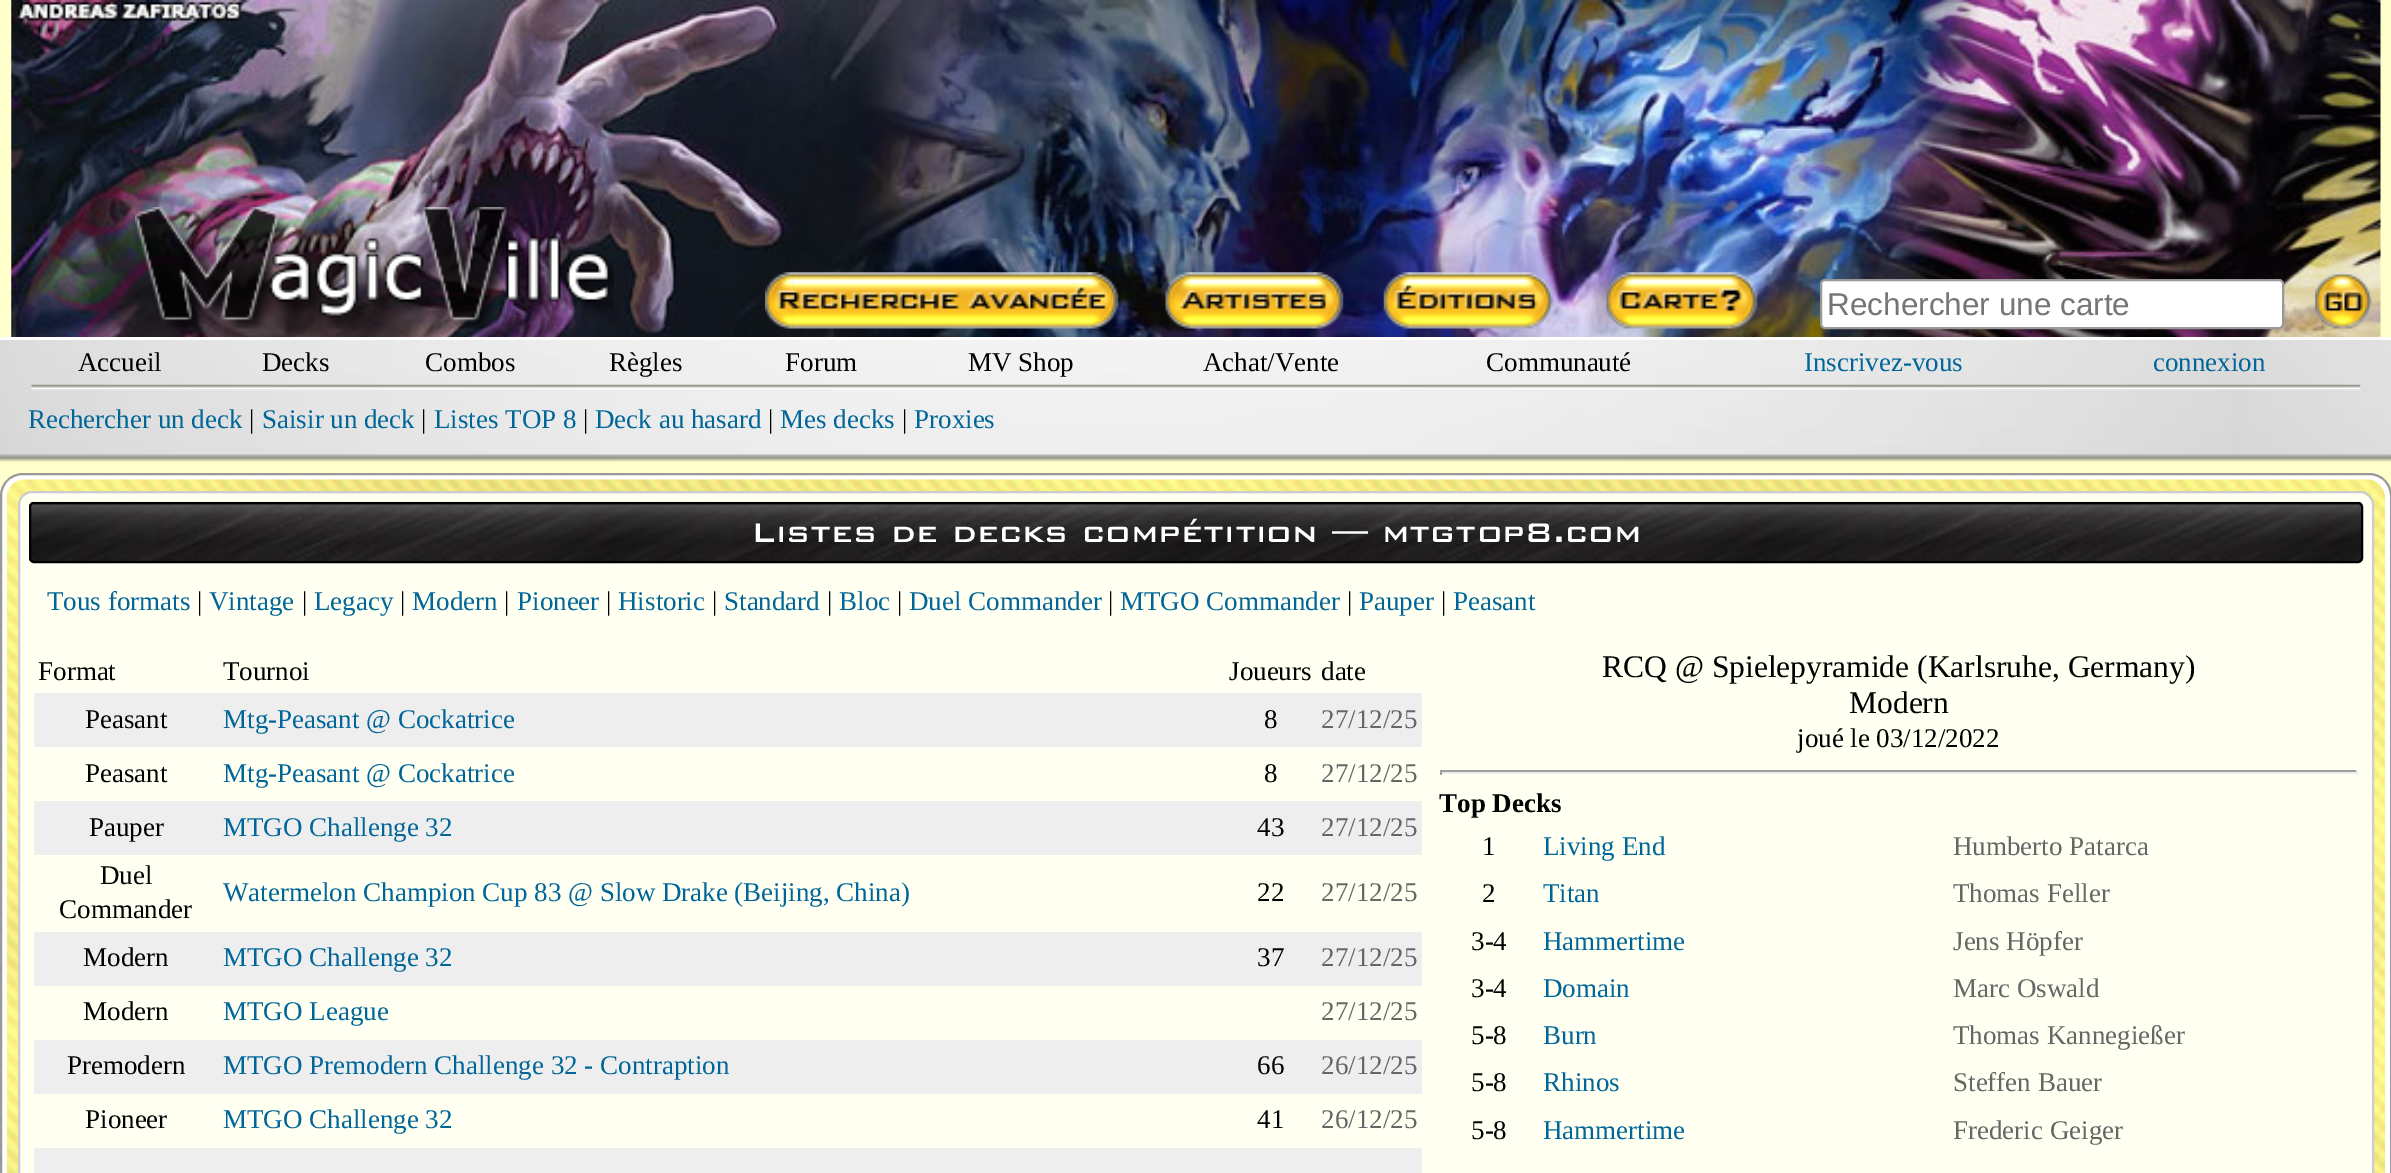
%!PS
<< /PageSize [2391 1173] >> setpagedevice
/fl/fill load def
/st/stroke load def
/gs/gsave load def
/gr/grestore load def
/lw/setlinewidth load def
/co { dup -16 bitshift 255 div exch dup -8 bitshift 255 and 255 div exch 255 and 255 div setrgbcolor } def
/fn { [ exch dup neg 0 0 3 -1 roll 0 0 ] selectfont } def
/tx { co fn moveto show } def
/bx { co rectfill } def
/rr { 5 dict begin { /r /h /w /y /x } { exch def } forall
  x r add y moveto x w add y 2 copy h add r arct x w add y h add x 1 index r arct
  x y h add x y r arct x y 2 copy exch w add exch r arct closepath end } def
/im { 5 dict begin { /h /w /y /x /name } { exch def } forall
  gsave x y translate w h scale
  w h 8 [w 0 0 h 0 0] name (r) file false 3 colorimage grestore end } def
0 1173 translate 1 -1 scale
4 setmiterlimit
0 0 2391 1173 16#FFFFCC bx
(media/1.raw) 11 0 2370 337 im
(media/2.raw) 135 207 479 122 im
(media/3.raw) 765 272 354 57 im
(media/4.raw) 1165 272 179 57 im
(media/5.raw) 1383 272 170 57 im
(media/6.raw) 1606 272 152 57 im
16#FFFFFF co
1821 280 462 48 4 rr gs fl gr
16#999999 co
2 lw
st
(media/7.raw) 2315 272 57 57 im
(media/8.raw) 0 340 2391 122 im
0 337 2391 3 16#FFFFFF bx
(media/9.raw) 0 454 2391 8 im
(media/10.raw) 31 384 2330 6 im
1 474 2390 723 22 rr gs fl gr
16#999999 co
st
(media/11.raw) 6 479 2379 694 im
16#FFFFF2 co
19 492 2354 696 13 rr gs fl gr
16#CCCCCC co
st
(media/12.raw) 29 501 2334 62 im
16#000000 co
30 503 2332 59 4 rr st
34 693 1388 54 16#EEEEEE bx
34 801 1388 54 16#EEEEEE bx
34 932 1388 54 16#EEEEEE bx
34 1040 1388 54 16#EEEEEE bx
34 1148 1388 25 16#EEEEEE bx
1440 770 918 2 16#9F9F9F bx
2356 770 2 5 16#EEEEEE bx
1440 772 918 2 16#EEEEEE bx
1440 770 2 5 16#9F9F9F bx
(Rechercher une carte) 1827 315 /LiberationSans-Regular 31.5 16#757575 tx
(Accueil) 78 371 /LiberationSerif-Regular 27 16#000000 tx
(Decks) 262 371 /LiberationSerif-Regular 27 16#000000 tx
(Combos) 425 371 /LiberationSerif-Regular 27 16#000000 tx
(Règles) 609 371 /LiberationSerif-Regular 27 16#000000 tx
(Forum) 785 371 /LiberationSerif-Regular 27 16#000000 tx
(MV Shop) 968 371 /LiberationSerif-Regular 27 16#000000 tx
(Achat/Vente) 1203 371 /LiberationSerif-Regular 27 16#000000 tx
(Communauté) 1486 371 /LiberationSerif-Regular 27 16#000000 tx
(Inscrivez-vous) 1804 371 /LiberationSerif-Regular 27 16#006699 tx
(connexion) 2153 371 /LiberationSerif-Regular 27 16#006699 tx
(Rechercher un deck) 28 428 /LiberationSerif-Regular 27 16#006699 tx
(|) 249 428 /LiberationSerif-Regular 27 16#000000 tx
(Saisir un deck) 262 428 /LiberationSerif-Regular 27 16#006699 tx
(|) 421 428 /LiberationSerif-Regular 27 16#000000 tx
(Listes TOP 8) 434 428 /LiberationSerif-Regular 27 16#006699 tx
(|) 583 428 /LiberationSerif-Regular 27 16#000000 tx
(Deck au hasard) 595 428 /LiberationSerif-Regular 27 16#006699 tx
(|) 768 428 /LiberationSerif-Regular 27 16#000000 tx
(Mes decks) 780 428 /LiberationSerif-Regular 27 16#006699 tx
(|) 902 428 /LiberationSerif-Regular 27 16#000000 tx
(Proxies) 914 428 /LiberationSerif-Regular 27 16#006699 tx
(Listes de decks compétition — mtgtop8.com) 751 542 /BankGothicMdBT-Medium 36 16#FFFFFF tx
(Tous formats) 47 610 /LiberationSerif-Regular 27 16#006699 tx
(|) 197 610 /LiberationSerif-Regular 27 16#000000 tx
(Vintage) 209 610 /LiberationSerif-Regular 27 16#006699 tx
(|) 302 610 /LiberationSerif-Regular 27 16#000000 tx
(Legacy) 314 610 /LiberationSerif-Regular 27 16#006699 tx
(|) 400 610 /LiberationSerif-Regular 27 16#000000 tx
(Modern) 412 610 /LiberationSerif-Regular 27 16#006699 tx
(|) 504 610 /LiberationSerif-Regular 27 16#000000 tx
(Pioneer) 517 610 /LiberationSerif-Regular 27 16#006699 tx
(|) 606 610 /LiberationSerif-Regular 27 16#000000 tx
(Historic) 618 610 /LiberationSerif-Regular 27 16#006699 tx
(|) 712 610 /LiberationSerif-Regular 27 16#000000 tx
(Standard) 724 610 /LiberationSerif-Regular 27 16#006699 tx
(|) 827 610 /LiberationSerif-Regular 27 16#000000 tx
(Bloc) 839 610 /LiberationSerif-Regular 27 16#006699 tx
(|) 897 610 /LiberationSerif-Regular 27 16#000000 tx
(Duel Commander) 909 610 /LiberationSerif-Regular 27 16#006699 tx
(|) 1108 610 /LiberationSerif-Regular 27 16#000000 tx
(MTGO Commander) 1120 610 /LiberationSerif-Regular 27 16#006699 tx
(|) 1347 610 /LiberationSerif-Regular 27 16#000000 tx
(Pauper) 1359 610 /LiberationSerif-Regular 27 16#006699 tx
(|) 1441 610 /LiberationSerif-Regular 27 16#000000 tx
(Peasant) 1453 610 /LiberationSerif-Regular 27 16#006699 tx
(Format) 38 680 /LiberationSerif-Regular 27 16#000000 tx
(Tournoi) 223 680 /LiberationSerif-Regular 27 16#000000 tx
(Joueurs) 1229 680 /LiberationSerif-Regular 27 16#000000 tx
(date) 1321 680 /LiberationSerif-Regular 27 16#000000 tx
(Peasant) 85 728 /LiberationSerif-Regular 27 16#000000 tx
(Mtg-Peasant @ Cockatrice) 223 728 /LiberationSerif-Regular 27 16#006699 tx
(8) 1264 728 /LiberationSerif-Regular 27 16#000000 tx
(27/12/25) 1321 728 /LiberationSerif-Regular 27 16#666666 tx
(Peasant) 85 782 /LiberationSerif-Regular 27 16#000000 tx
(Mtg-Peasant @ Cockatrice) 223 782 /LiberationSerif-Regular 27 16#006699 tx
(8) 1264 782 /LiberationSerif-Regular 27 16#000000 tx
(27/12/25) 1321 782 /LiberationSerif-Regular 27 16#666666 tx
(Pauper) 89 836 /LiberationSerif-Regular 27 16#000000 tx
(MTGO Challenge 32) 223 836 /LiberationSerif-Regular 27 16#006699 tx
(43) 1257 836 /LiberationSerif-Regular 27 16#000000 tx
(27/12/25) 1321 836 /LiberationSerif-Regular 27 16#666666 tx
(Duel) 100 884 /LiberationSerif-Regular 27 16#000000 tx
(Commander) 59 918 /LiberationSerif-Regular 27 16#000000 tx
(Watermelon Champion Cup 83 @ Slow Drake \(Beijing, China\)) 223 901 /LiberationSerif-Regular 27 16#006699 tx
(22) 1257 901 /LiberationSerif-Regular 27 16#000000 tx
(27/12/25) 1321 901 /LiberationSerif-Regular 27 16#666666 tx
(Modern) 83 966 /LiberationSerif-Regular 27 16#000000 tx
(MTGO Challenge 32) 223 966 /LiberationSerif-Regular 27 16#006699 tx
(37) 1257 966 /LiberationSerif-Regular 27 16#000000 tx
(27/12/25) 1321 966 /LiberationSerif-Regular 27 16#666666 tx
(Modern) 83 1020 /LiberationSerif-Regular 27 16#000000 tx
(MTGO League) 223 1020 /LiberationSerif-Regular 27 16#006699 tx
(27/12/25) 1321 1020 /LiberationSerif-Regular 27 16#666666 tx
(Premodern) 67 1074 /LiberationSerif-Regular 27 16#000000 tx
(MTGO Premodern Challenge 32 - Contraption) 223 1074 /LiberationSerif-Regular 27 16#006699 tx
(66) 1257 1074 /LiberationSerif-Regular 27 16#000000 tx
(26/12/25) 1321 1074 /LiberationSerif-Regular 27 16#666666 tx
(Pioneer) 85 1128 /LiberationSerif-Regular 27 16#000000 tx
(MTGO Challenge 32) 223 1128 /LiberationSerif-Regular 27 16#006699 tx
(41) 1257 1128 /LiberationSerif-Regular 27 16#000000 tx
(26/12/25) 1321 1128 /LiberationSerif-Regular 27 16#666666 tx
(RCQ @ Spielepyramide \(Karlsruhe, Germany\)) 1602 677 /LiberationSerif-Regular 31.5 16#000000 tx
(Modern) 1849 713 /LiberationSerif-Regular 31.5 16#000000 tx
(joué le 03/12/2022) 1797 747 /LiberationSerif-Regular 27 16#000000 tx
(Top Decks) 1439 812 /LiberationSerif-Bold 27 16#000000 tx
(1) 1482 855 /LiberationSerif-Regular 27 16#000000 tx
(Living End) 1543 855 /LiberationSerif-Regular 27 16#006699 tx
(Humberto Patarca) 1953 855 /LiberationSerif-Regular 27 16#666666 tx
(2) 1482 902 /LiberationSerif-Regular 27 16#000000 tx
(Titan) 1543 902 /LiberationSerif-Regular 27 16#006699 tx
(Thomas Feller) 1953 902 /LiberationSerif-Regular 27 16#666666 tx
(3-4) 1471 950 /LiberationSerif-Regular 27 16#000000 tx
(Hammertime) 1543 950 /LiberationSerif-Regular 27 16#006699 tx
(Jens Höpfer) 1953 950 /LiberationSerif-Regular 27 16#666666 tx
(3-4) 1471 997 /LiberationSerif-Regular 27 16#000000 tx
(Domain) 1543 997 /LiberationSerif-Regular 27 16#006699 tx
(Marc Oswald) 1953 997 /LiberationSerif-Regular 27 16#666666 tx
(5-8) 1471 1044 /LiberationSerif-Regular 27 16#000000 tx
(Burn) 1543 1044 /LiberationSerif-Regular 27 16#006699 tx
(Thomas Kannegießer) 1953 1044 /LiberationSerif-Regular 27 16#666666 tx
(5-8) 1471 1091 /LiberationSerif-Regular 27 16#000000 tx
(Rhinos) 1543 1091 /LiberationSerif-Regular 27 16#006699 tx
(Steffen Bauer) 1953 1091 /LiberationSerif-Regular 27 16#666666 tx
(5-8) 1471 1139 /LiberationSerif-Regular 27 16#000000 tx
(Hammertime) 1543 1139 /LiberationSerif-Regular 27 16#006699 tx
(Frederic Geiger) 1953 1139 /LiberationSerif-Regular 27 16#666666 tx
showpage
